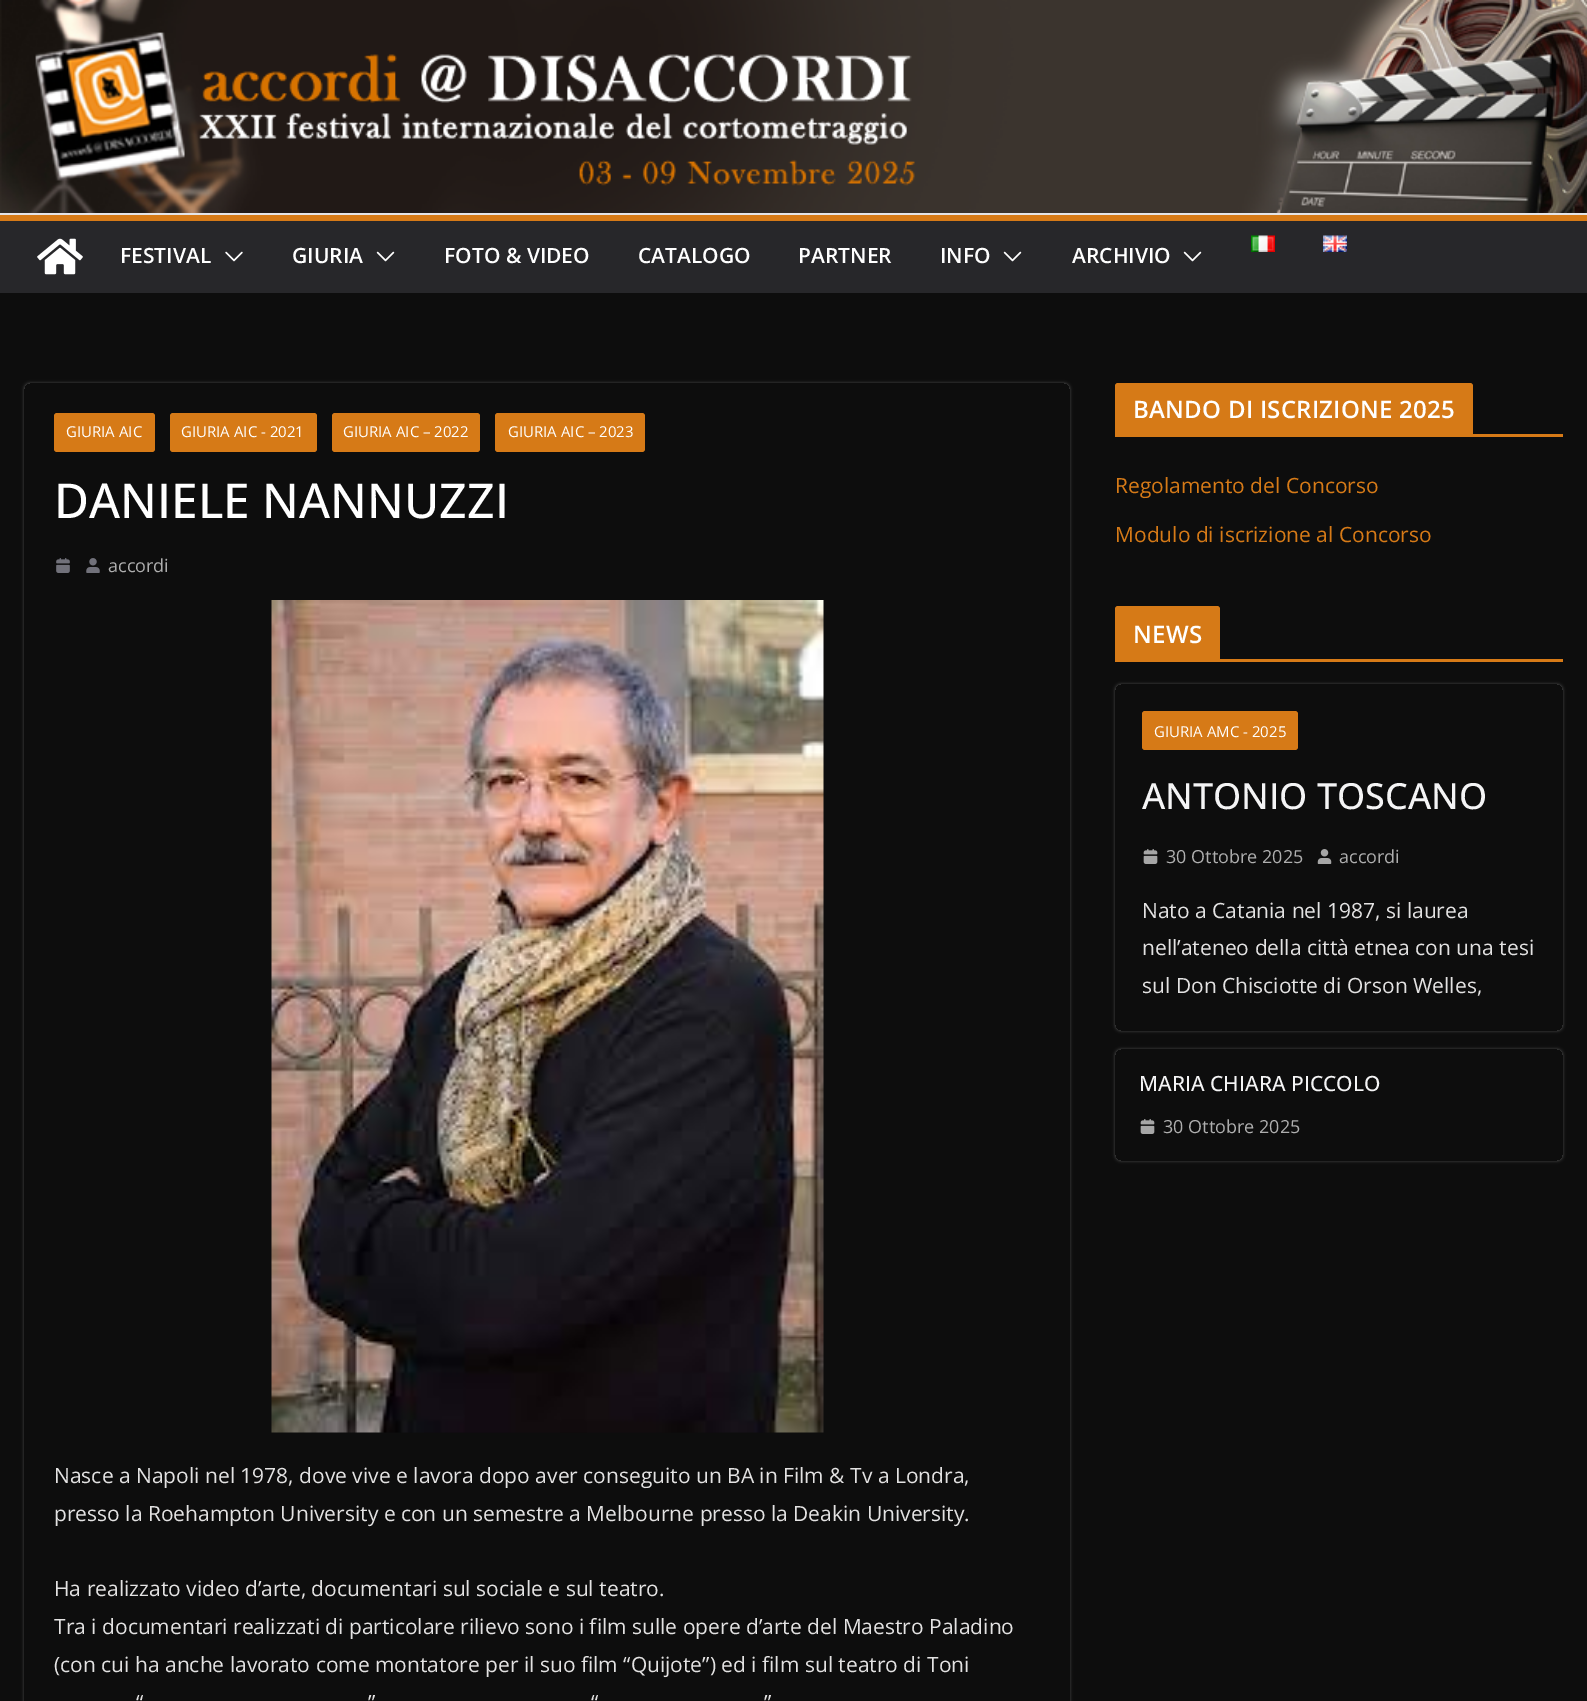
%!PS
<< /PageSize [1587 1701] /PageUsesTransparency true >> setpagedevice
/mt/moveto load def
/li/lineto load def
/ct/curveto load def
/cp/closepath load def
/fl/fill load def
/gs/gsave load def
/gr/grestore load def
/co { dup -16 bitshift 255 div exch dup -8 bitshift 255 and 255 div exch 255 and 255 div setrgbcolor } def
/fn { [ exch dup neg 0 0 3 -1 roll 0 0 ] selectfont } def
/tx { co fn moveto show } def
/bx { co rectfill } def
/al { dup .setfillconstantalpha .setstrokeconstantalpha } def
/rr { 5 dict begin { /r /h /w /y /x } { exch def } forall
  x r add y moveto x w add y 2 copy h add r arct x w add y h add x 1 index r arct
  x y h add x y r arct x y 2 copy exch w add exch r arct closepath end } def
/sh { 12 dict begin { /a /b /q /h /w /y /x } { exch def } forall gsave /was 0 def
  9 -2 -9 { dup b mul 4 div /e exch def 1 sub .425 mul 2.718 exch exp 1 add a .99 .min exch div /now exch def
    1 1 now sub 1 was sub div sub al /was now def
    w h .min e 2 mul add 0 gt { x e sub y e sub w e 2 mul add h e 2 mul add
      q e add b .6 mul add w h .min 2 div e add .min 0 .max rr fill } if } for grestore end } def
/im { 5 dict begin { /h /w /y /x /name } { exch def } forall
  gsave x y translate w h scale
  w h 8 [w 0 0 h 0 0] name (r) file false 3 colorimage grestore end } def
0 .pushpdf14devicefilter
0 1701 translate 1 -1 scale
4 setmiterlimit
0 0 1587 1701 16#0D0D0D bx
(media/1.raw) 0 0 1587 213 im
0 213 1587 2 16#E4E4E7 bx
0 221 1587 72 16#27272A bx
0 215 1587 6 16#D67A17 bx
(media/2.raw) 37 238 46 37 im
(media/3.raw) 1251 235 24 17 im
(media/4.raw) 1323 235 24 17 im
(media/5.raw) 225 251 18 11 im
(media/6.raw) 376 251 19 11 im
(media/6.raw) 1003 251 19 11 im
(media/6.raw) 1183 251 19 11 im
gs
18 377 mt 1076 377 li 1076 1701 li 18 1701 li cp 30 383 mt 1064 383 li 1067.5 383 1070 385.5 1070 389 ct 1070 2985 li 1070 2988.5 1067.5 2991 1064 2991 ct 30 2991 li 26.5 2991 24 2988.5 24 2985 ct 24 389 li 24 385.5 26.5 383 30 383 ct cp eoclip newpath
16#FFFFFF co
24 383 1046 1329 6 1.5 .24 sh
gr
54 413 101 39 3 rr fl
170 413 147 39 3 rr fl
332 413 148 39 3 rr fl
495 413 150 39 3 rr fl
(media/7.raw) 56 558 14 15 im
(media/8.raw) 86 558 14 15 im
(media/9.raw) 271 600 553 833 im
1115 434 448 3 16#D67A17 bx
1118 383 mt 1470 383 li 1471.5 383 1473 384.5 1473 386 ct 1473 434 li 1115 434 li 1115 386 li 1115 384.5 1116.5 383 1118 383 ct cp fl
1115 659 448 3 16#D67A17 bx
1118 606 mt 1217 606 li 1218.5 606 1220 607.5 1220 609 ct 1220 659 li 1115 659 li 1115 609 li 1115 607.5 1116.5 606 1118 606 ct cp fl
gs
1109 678 mt 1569 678 li 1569 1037 li 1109 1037 li cp 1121 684 mt 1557 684 li 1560.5 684 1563 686.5 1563 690 ct 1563 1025 li 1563 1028.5 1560.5 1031 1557 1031 ct 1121 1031 li 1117.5 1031 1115 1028.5 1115 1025 ct 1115 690 li 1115 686.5 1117.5 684 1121 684 ct cp eoclip newpath
16#FFFFFF co
1115 684 448 347 6 1.5 .24 sh
gr
1142 711 156 39 3 rr fl
(media/10.raw) 1143 849 15 15 im
(media/11.raw) 1317 849 15 15 im
gs
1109 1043 mt 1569 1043 li 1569 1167 li 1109 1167 li cp 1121 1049 mt 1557 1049 li 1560.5 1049 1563 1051.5 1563 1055 ct 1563 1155 li 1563 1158.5 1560.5 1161 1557 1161 ct 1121 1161 li 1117.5 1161 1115 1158.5 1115 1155 ct 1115 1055 li 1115 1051.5 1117.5 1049 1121 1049 ct cp eoclip newpath
16#FFFFFF co
1115 1049 448 112 6 1.5 .24 sh
gr
(media/10.raw) 1140 1119 15 15 im
(FESTIVAL) 120 263 /OpenSans-SemiBold 21 16#FFFFFF tx
(GIURIA) 292 263 /OpenSans-SemiBold 21 16#FFFFFF tx
(FOTO & VIDEO) 444 263 /OpenSans-SemiBold 21 16#FFFFFF tx
(CATALOGO) 638 263 /OpenSans-SemiBold 21 16#FFFFFF tx
(PARTNER) 798 263 /OpenSans-SemiBold 21 16#FFFFFF tx
(INFO) 940 263 /OpenSans-SemiBold 21 16#FFFFFF tx
(ARCHIVIO) 1072 263 /OpenSans-SemiBold 21 16#FFFFFF tx
(GIURIA AIC) 66 437 /OpenSans-Regular 15 16#FFFFFF tx
(GIURIA AIC - 2021) 181 437 /OpenSans-Regular 15 16#FFFFFF tx
(GIURIA AIC – 2022) 343 437 /OpenSans-Regular 15 16#FFFFFF tx
(GIURIA AIC – 2023) 508 437 /OpenSans-Regular 15 16#FFFFFF tx
(DANIELE NANNUZZI) 54 518 /OpenSans-Medium 48 16#FFFFFF tx
(accordi) 108 572 /OpenSans-Regular 18 16#AEAEAE tx
(Nasce a Napoli nel 1978, dove vive e lavora dopo aver conseguito un BA in Film & Tv a Londra,) 54 1483 /OpenSans-Regular 21 16#E3E2E2 tx
(presso la Roehampton University e con un semestre a Melbourne presso la Deakin University.) 54 1521 /OpenSans-Regular 21 16#E3E2E2 tx
(Ha realizzato video d’arte, documentari sul sociale e sul teatro.) 54 1596 /OpenSans-Regular 21 16#E3E2E2 tx
(Tra i documentari realizzati di particolare rilievo sono i film sulle opere d’arte del Maestro Paladino) 54 1634 /OpenSans-Regular 21 16#E3E2E2 tx
(\(con cui ha anche lavorato come montatore per il suo film “Quijote”\) ed i film sul teatro di Toni) 54 1672 /OpenSans-Regular 21 16#E3E2E2 tx
(“) 136 1710 /OpenSans-Regular 21 16#E3E2E2 tx
(”) 368 1710 /OpenSans-Regular 21 16#E3E2E2 tx
(“) 591 1710 /OpenSans-Regular 21 16#E3E2E2 tx
(”) 764 1710 /OpenSans-Regular 21 16#E3E2E2 tx
/OpenSans-SemiBold 24 fn
16#FFFFFF co
1133 418 mt .25 0 (BANDO DI ISCRIZIONE 2025) ashow
(Regolamento del Concorso) 1115 493 /OpenSans-Regular 21 16#D67A17 tx
(Modulo di iscrizione al Concorso) 1115 542 /OpenSans-Regular 21 16#D67A17 tx
/OpenSans-SemiBold 24 fn
16#FFFFFF co
1133 643 mt .25 0 (NEWS) ashow
(GIURIA AMC - 2025) 1154 737 /OpenSans-Regular 15 16#FFFFFF tx
(ANTONIO TOSCANO) 1142 809 /OpenSans-Medium 36 16#F4F4F5 tx
(30 Ottobre 2025) 1166 863 /OpenSans-Regular 18 16#AEAEAE tx
(accordi) 1339 863 /OpenSans-Regular 18 16#AEAEAE tx
(Nato a Catania nel 1987, si laurea) 1142 918 /OpenSans-Regular 21 16#E3E2E2 tx
(nell’ateneo della città etnea con una tesi) 1142 955 /OpenSans-Regular 21 16#E3E2E2 tx
(sul Don Chisciotte di Orson Welles,) 1142 993 /OpenSans-Regular 21 16#E3E2E2 tx
(MARIA CHIARA PICCOLO) 1139 1091 /OpenSans-Medium 21 16#F4F4F5 tx
(30 Ottobre 2025) 1163 1133 /OpenSans-Regular 18 16#AEAEAE tx
.poppdf14devicefilter showpage
